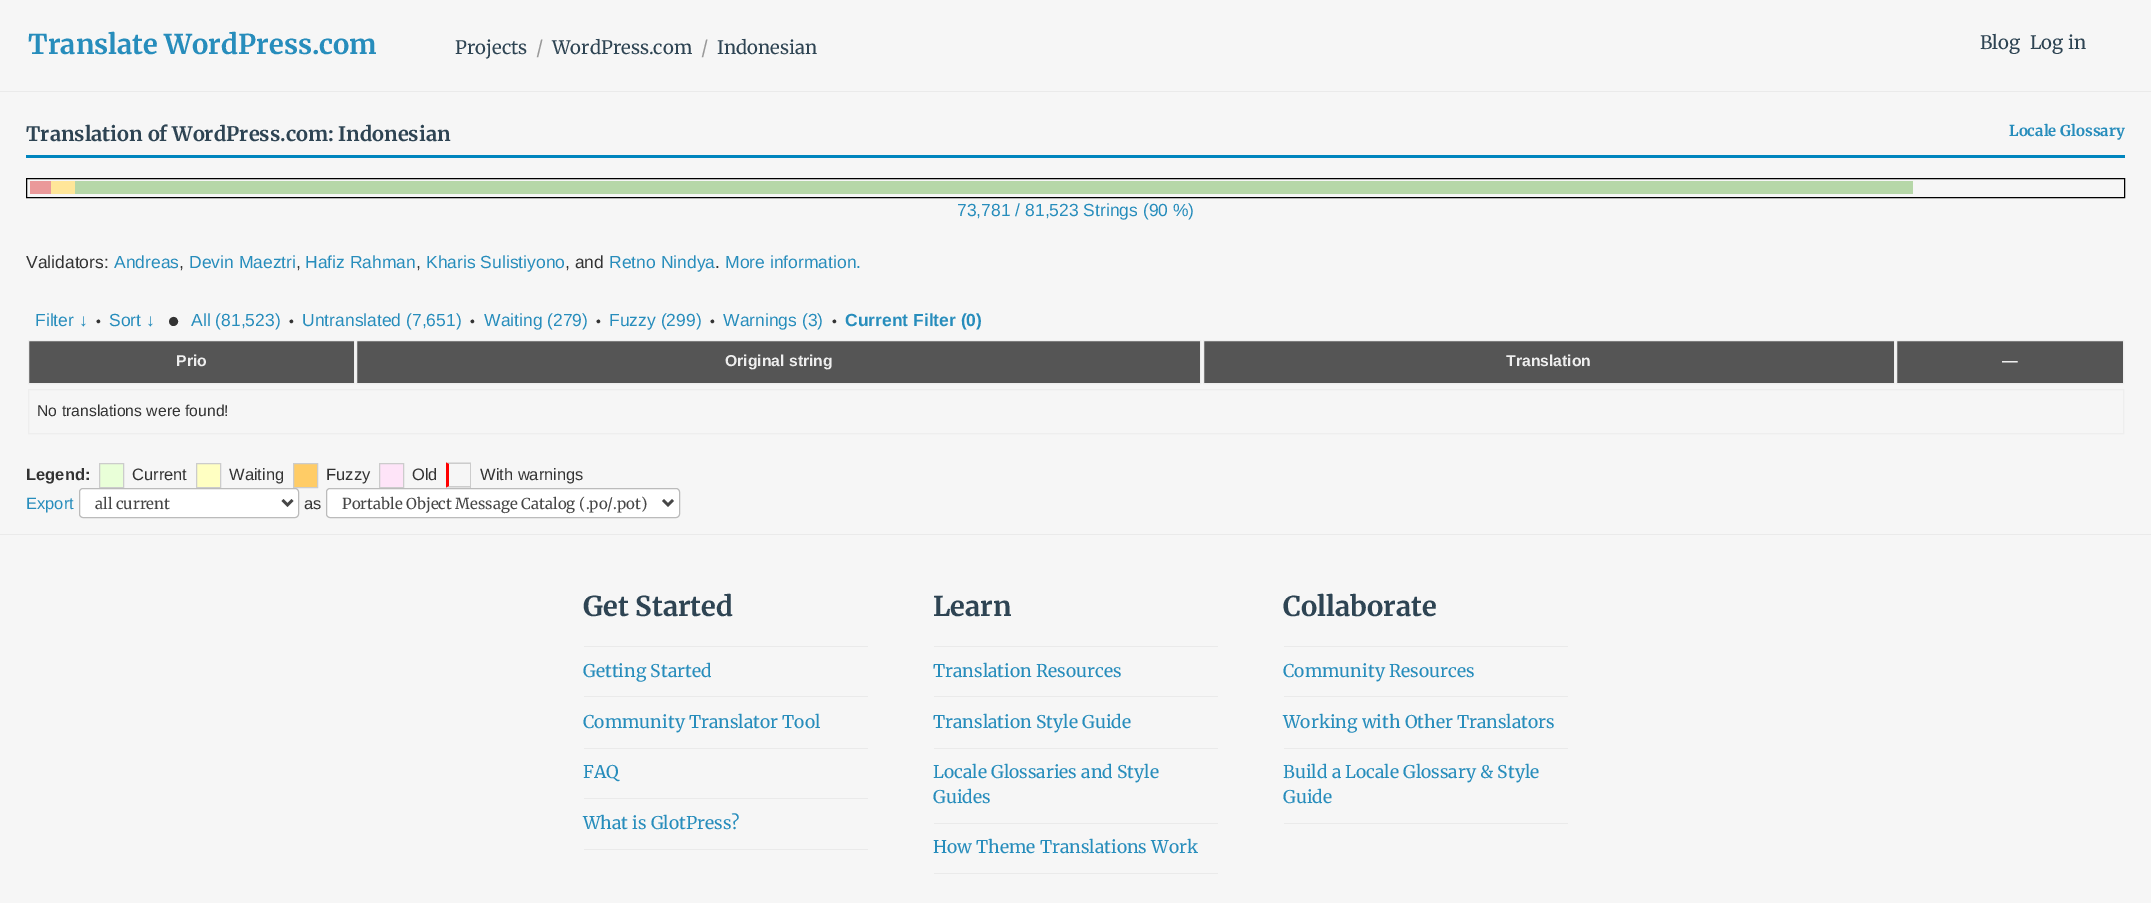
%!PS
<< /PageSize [2151 903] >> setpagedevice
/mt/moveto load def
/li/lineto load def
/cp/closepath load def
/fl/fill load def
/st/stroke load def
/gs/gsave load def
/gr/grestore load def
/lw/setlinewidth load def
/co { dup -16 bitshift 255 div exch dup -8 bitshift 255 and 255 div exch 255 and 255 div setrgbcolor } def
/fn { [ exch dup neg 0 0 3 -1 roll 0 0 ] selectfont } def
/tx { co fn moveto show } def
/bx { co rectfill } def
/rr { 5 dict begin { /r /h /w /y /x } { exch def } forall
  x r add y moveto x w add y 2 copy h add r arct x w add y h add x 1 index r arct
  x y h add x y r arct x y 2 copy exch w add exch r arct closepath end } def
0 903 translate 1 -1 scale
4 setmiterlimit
0 0 2151 903 16#F6F6F6 bx
0 91 2151 1 16#EAEAEA bx
26 155 2099 3 16#0085BE bx
16#000000 co
26.5 178.5 2098 19 rectstroke
30 181 21 13 16#EA999A bx
51 181 24 13 16#FFE699 bx
75 181 1838 13 16#B6D7A8 bx
16#555555 co
28.5 340.5 mt 354.5 340.5 li 354.5 383.5 li 28.5 383.5 li cp gs fl gr
16#EEEEEE co
st
16#555555 co
356.5 340.5 mt 1200.5 340.5 li 1200.5 383.5 li 356.5 383.5 li cp gs fl gr
16#EEEEEE co
st
16#555555 co
1203.5 340.5 mt 1894.5 340.5 li 1894.5 383.5 li 1203.5 383.5 li cp gs fl gr
16#EEEEEE co
st
16#555555 co
1896.5 340.5 mt 2123.5 340.5 li 2123.5 383.5 li 1896.5 383.5 li cp gs fl gr
16#EEEEEE co
st
28.5 389.5 2095 44 rectstroke
16#E9FFD8 co
99.5 463.5 mt 123.5 463.5 li 123.5 487.5 li 99.5 487.5 li cp gs fl gr
16#CCCCCC co
st
16#FFFFC2 co
196.5 463.5 mt 220.5 463.5 li 220.5 487.5 li 196.5 487.5 li cp gs fl gr
16#CCCCCC co
st
16#FFCC66 co
293.5 463.5 mt 317.5 463.5 li 317.5 487.5 li 293.5 487.5 li cp gs fl gr
16#CCCCCC co
st
16#FEE4F8 co
379.5 463.5 mt 403.5 463.5 li 403.5 487.5 li 379.5 487.5 li cp gs fl gr
16#CCCCCC co
st
446 462.5 mt 471 462.5 li 470 464 li 449 464 li cp fl
470 463 1 25 16#CCCCCC bx
471 487.5 mt 446 487.5 li 449 486 li 470 486 li cp fl
16#FF0000 co
446 487.5 mt 446 462.5 li 449 464 li 449 486 li cp fl
16#FFFFFF co
79.5 488.5 219 29 3.5 rr gs fl gr
16#BBBBBB co
st
16#464646 co
2.5 lw
282.5 500 mt 287.5 505 li 292.5 500 li st
16#FFFFFF co
326.5 488.5 353 29 3.5 rr gs fl gr
16#BBBBBB co
1 lw
st
16#464646 co
2.5 lw
663 500 mt 668 505 li 673 500 li st
0 534 2151 1 16#EAEAEA bx
584 849 284 1 16#EAEAEA bx
584 646 284 1 16#EAEAEA bx
584 696 284 1 16#EAEAEA bx
584 748 284 1 16#EAEAEA bx
584 798 284 1 16#EAEAEA bx
934 873 284 1 16#EAEAEA bx
934 646 284 1 16#EAEAEA bx
934 696 284 1 16#EAEAEA bx
934 748 284 1 16#EAEAEA bx
934 823 284 1 16#EAEAEA bx
1284 823 284 1 16#EAEAEA bx
1284 646 284 1 16#EAEAEA bx
1284 696 284 1 16#EAEAEA bx
1284 748 284 1 16#EAEAEA bx
(Translate WordPress.com) 28 54 /Merriweather-Bold 27.3 16#278DBC tx
(Projects) 455 54 /Merriweather-Regular 18.5 16#2E4453 tx
(/) 536 54 /Merriweather-Regular 18.5 16#999999 tx
(WordPress.com) 552 54 /Merriweather-Regular 18.5 16#2E4453 tx
(/) 701 54 /Merriweather-Regular 18.5 16#999999 tx
(Indonesian) 717 54 /Merriweather-Regular 18.5 16#2E4453 tx
(Blog) 1980 49 /Merriweather-Regular 18.5 16#2E4453 tx
(Log in) 2030 49 /Merriweather-Regular 18.5 16#2E4453 tx
(Translation of WordPress.com: Indonesian) 26 141 /Merriweather-Bold 20 16#2E4453 tx
(Locale Glossary) 2009 136 /Merriweather-Bold 15 16#278DBC tx
(73,781 / 81,523 Strings \(90 %\)) 957 216 /LiberationSans-Regular 17.5 16#278DBC tx
(Validators:) 26 268 /LiberationSans-Regular 17.5 16#333333 tx
(Andreas) 114 268 /LiberationSans-Regular 17.5 16#278DBC tx
(,) 179 268 /LiberationSans-Regular 17.5 16#333333 tx
(Devin Maeztri) 189 268 /LiberationSans-Regular 17.5 16#278DBC tx
(,) 296 268 /LiberationSans-Regular 17.5 16#333333 tx
(Hafiz Rahman) 305 268 /LiberationSans-Regular 17.5 16#278DBC tx
(,) 416 268 /LiberationSans-Regular 17.5 16#333333 tx
(Kharis Sulistiyono) 426 268 /LiberationSans-Regular 17.5 16#278DBC tx
(, and) 565 268 /LiberationSans-Regular 17.5 16#333333 tx
(Retno Nindya) 609 268 /LiberationSans-Regular 17.5 16#278DBC tx
(.) 715 268 /LiberationSans-Regular 17.5 16#333333 tx
(More information.) 725 268 /LiberationSans-Regular 17.5 16#278DBC tx
(Filter ↓) 35 326 /LiberationSans-Regular 17.5 16#278DBC tx
(•) 96 326 /LiberationSans-Regular 14 16#333333 tx
(Sort ↓) 109 326 /LiberationSans-Regular 17.5 16#278DBC tx
(•) 168 332 /LiberationSans-Bold 32 16#333333 tx
(All \(81,523\)) 191 326 /LiberationSans-Regular 17.5 16#278DBC tx
(•) 289 326 /LiberationSans-Regular 14 16#333333 tx
(Untranslated \(7,651\)) 302 326 /LiberationSans-Regular 17.5 16#278DBC tx
(•) 470 326 /LiberationSans-Regular 14 16#333333 tx
(Waiting \(279\)) 484 326 /LiberationSans-Regular 17.5 16#278DBC tx
(•) 596 326 /LiberationSans-Regular 14 16#333333 tx
(Fuzzy \(299\)) 609 326 /LiberationSans-Regular 17.5 16#278DBC tx
(•) 710 326 /LiberationSans-Regular 14 16#333333 tx
(Warnings \(3\)) 723 326 /LiberationSans-Regular 17.5 16#278DBC tx
(•) 832 326 /LiberationSans-Regular 14 16#333333 tx
(Current Filter \(0\)) 845 326 /LiberationSans-Bold 17.5 16#278DBC tx
(Prio) 176 366 /LiberationSans-Bold 15.75 16#EEEEEE tx
(Original string) 725 366 /LiberationSans-Bold 15.75 16#EEEEEE tx
(Translation) 1506 366 /LiberationSans-Bold 15.75 16#EEEEEE tx
(—) 2002 366 /LiberationSans-Bold 15.75 16#EEEEEE tx
(No translations were found!) 37 416 /LiberationSans-Regular 15.75 16#333333 tx
(Legend:) 26 480 /LiberationSans-Bold 16.5 16#333333 tx
(Current) 132 480 /LiberationSans-Regular 16.5 16#333333 tx
(Waiting) 229 480 /LiberationSans-Regular 16.5 16#333333 tx
(Fuzzy) 326 480 /LiberationSans-Regular 16.5 16#333333 tx
(Old) 412 480 /LiberationSans-Regular 16.5 16#333333 tx
(With warnings) 480 480 /LiberationSans-Regular 16.5 16#333333 tx
(Export) 26 509 /LiberationSans-Regular 16.5 16#278DBC tx
(all current) 95 509 /Merriweather-Regular 15 16#464646 tx
(as) 304 509 /LiberationSans-Regular 16.5 16#333333 tx
(Portable Object Message Catalog \(.po/.pot\)) 342 509 /Merriweather-Regular 15 16#464646 tx
(Get Started) 583 616 /Merriweather-Bold 27.3 16#2E4453 tx
(Getting Started) 583 677 /Merriweather-Regular 17.5 16#278DBC tx
(Community Translator Tool) 583 728 /Merriweather-Regular 17.5 16#278DBC tx
(FAQ) 583 778 /Merriweather-Regular 17.5 16#278DBC tx
(What is GlotPress?) 583 829 /Merriweather-Regular 17.5 16#278DBC tx
(Learn) 933 616 /Merriweather-Bold 27.3 16#2E4453 tx
(Translation Resources) 933 677 /Merriweather-Regular 17.5 16#278DBC tx
(Translation Style Guide) 933 728 /Merriweather-Regular 17.5 16#278DBC tx
(Locale Glossaries and Style) 933 778 /Merriweather-Regular 17.5 16#278DBC tx
(Guides) 933 803 /Merriweather-Regular 17.5 16#278DBC tx
(How Theme Translations Work) 933 853 /Merriweather-Regular 17.5 16#278DBC tx
(Collaborate) 1283 616 /Merriweather-Bold 27.3 16#2E4453 tx
(Community Resources) 1283 677 /Merriweather-Regular 17.5 16#278DBC tx
(Working with Other Translators) 1283 728 /Merriweather-Regular 17.5 16#278DBC tx
(Build a Locale Glossary & Style) 1283 778 /Merriweather-Regular 17.5 16#278DBC tx
(Guide) 1283 803 /Merriweather-Regular 17.5 16#278DBC tx
showpage
